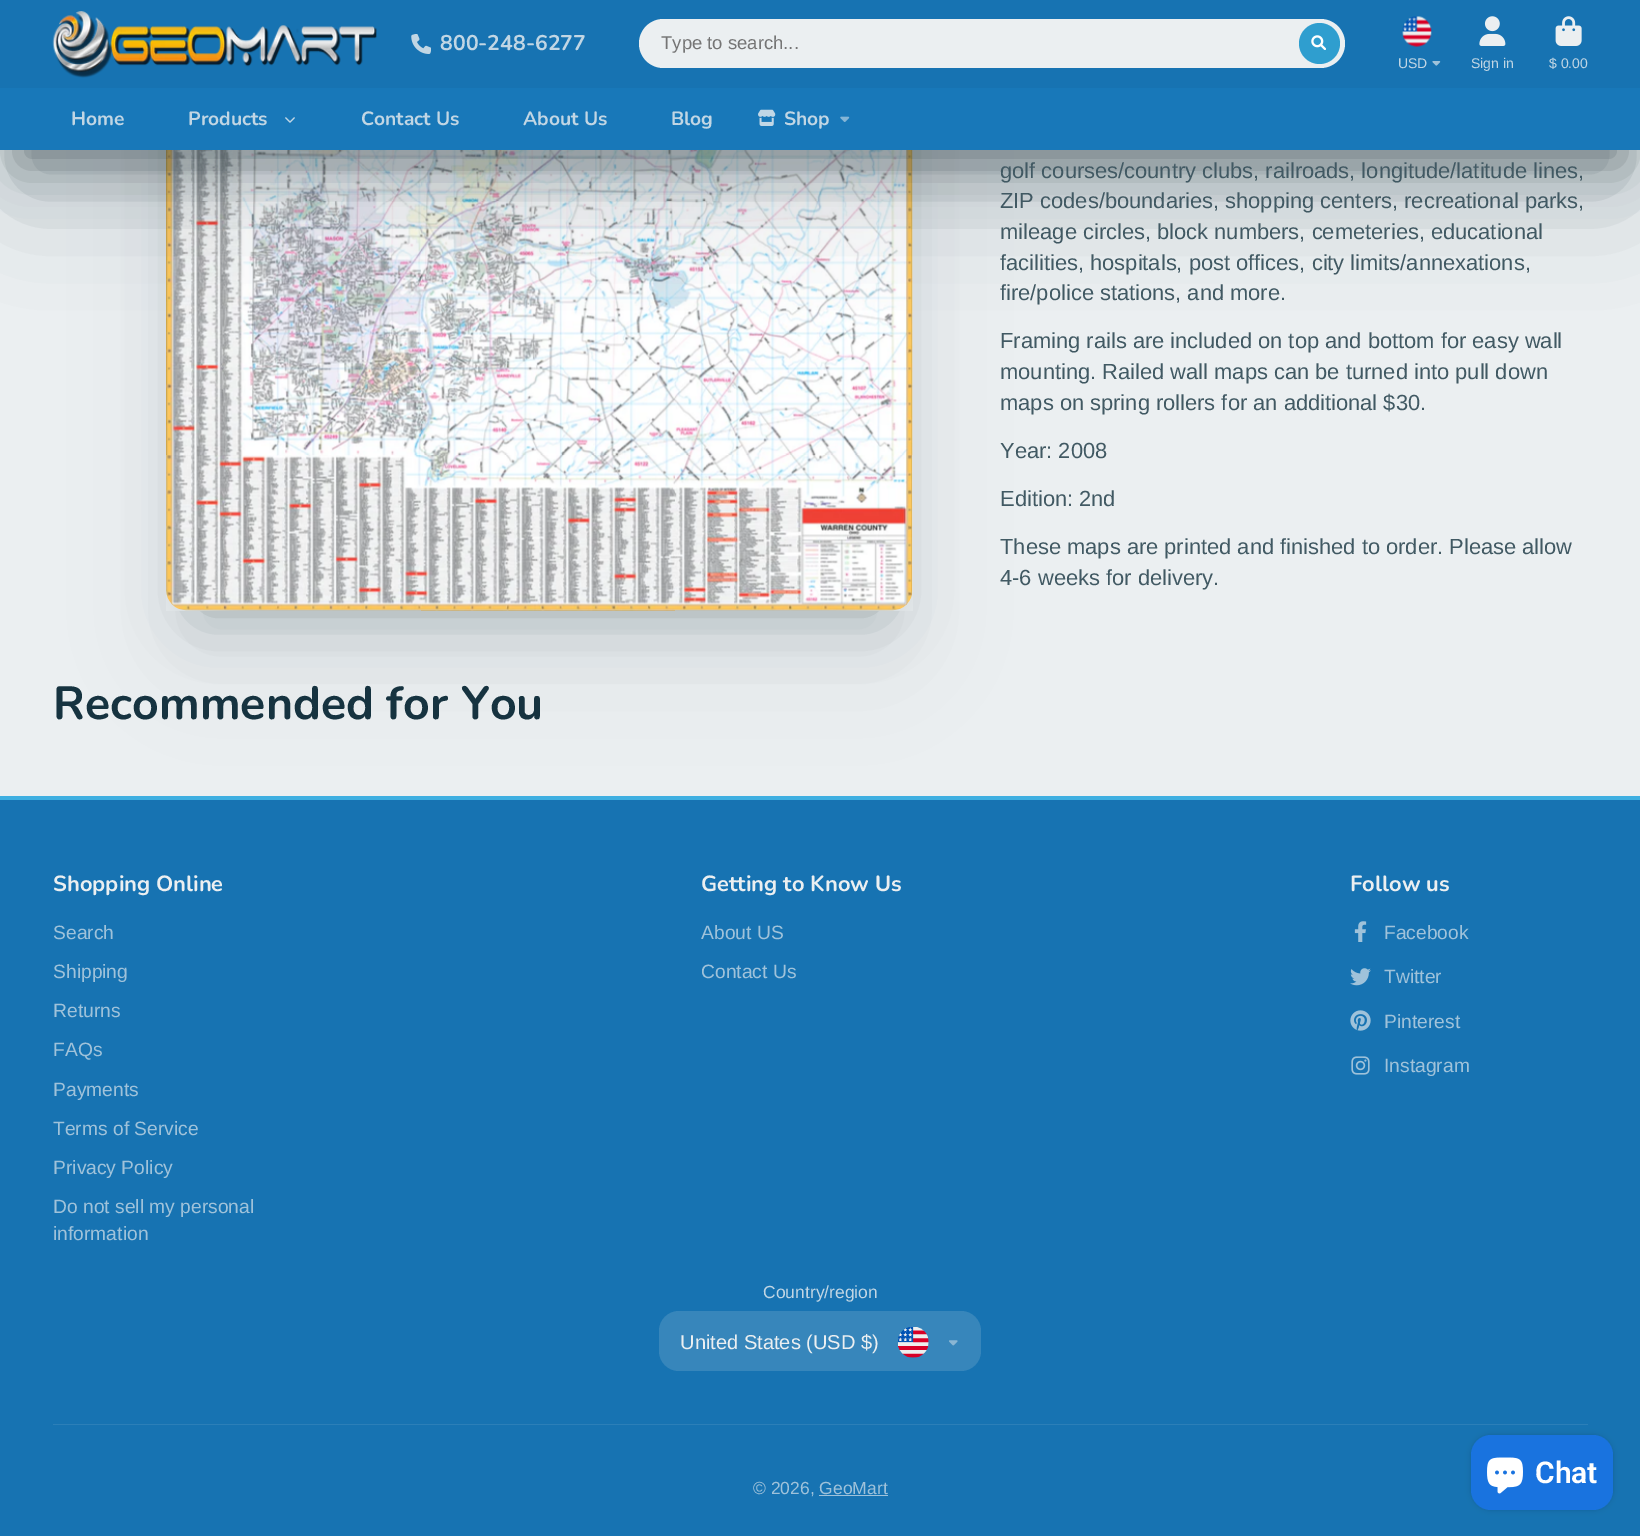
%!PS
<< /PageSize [1640 1536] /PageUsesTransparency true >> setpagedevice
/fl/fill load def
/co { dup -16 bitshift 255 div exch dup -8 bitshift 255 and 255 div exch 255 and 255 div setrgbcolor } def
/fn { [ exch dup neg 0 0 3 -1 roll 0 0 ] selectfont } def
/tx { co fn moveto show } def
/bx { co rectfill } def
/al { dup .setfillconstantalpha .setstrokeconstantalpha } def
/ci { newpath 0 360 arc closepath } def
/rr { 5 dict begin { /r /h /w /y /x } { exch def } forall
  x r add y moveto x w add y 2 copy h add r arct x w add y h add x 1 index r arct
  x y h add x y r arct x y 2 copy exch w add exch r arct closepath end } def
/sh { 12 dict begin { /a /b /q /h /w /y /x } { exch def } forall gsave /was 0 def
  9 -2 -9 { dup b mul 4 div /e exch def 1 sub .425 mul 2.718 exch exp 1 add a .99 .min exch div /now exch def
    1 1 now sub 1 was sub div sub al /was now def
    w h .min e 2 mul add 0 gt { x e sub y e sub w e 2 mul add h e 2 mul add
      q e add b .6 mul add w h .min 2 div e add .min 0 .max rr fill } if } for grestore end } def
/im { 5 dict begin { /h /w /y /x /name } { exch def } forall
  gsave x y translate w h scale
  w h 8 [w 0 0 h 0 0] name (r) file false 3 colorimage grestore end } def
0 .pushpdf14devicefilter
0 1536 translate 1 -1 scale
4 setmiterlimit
0 0 1640 1536 16#EBEFF1 bx
16#0F242D co
199 -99 681 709 0 33 .3 sh
0 800 1640 736 16#1773B2 bx
0 796 1640 4 16#3EAFE1 bx
16#0F242D co
189 -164 702 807 0 54.5 .1 sh
(media/11.raw) 166 150 747 461 im
18 50 1605 115 0 24 .4 sh
18 73 1605 115 0 54.5 .3 sh
0 0 1640 88 16#1773B2 bx
(media/1.raw) 52 11 325 67 im
(media/2.raw) 411 34 20 20 im
16#EBEFF1 co
639 19 706 49 24.5 rr fl
16#2F9ECF co
1319.5 43.5 20.5 ci fl
(media/3.raw) 1311 35 15 15 im
(media/4.raw) 1402 16 30 31 im
(media/5.raw) 1432 61 9 5 im
(media/6.raw) 1479 16 27 30 im
(media/7.raw) 1555 16 27 30 im
0 88 1640 62 16#1878B9 bx
(media/8.raw) 285 117 10 6 im
(media/9.raw) 758 109 18 17 im
(media/10.raw) 840 116 10 6 im
(media/12.raw) 1354 921 13 21 im
(media/13.raw) 1350 968 21 18 im
(media/14.raw) 1350 1010 21 21 im
(media/15.raw) 1351 1056 19 19 im
16#3786BB co
659 1311 322 60 20 rr fl
(media/16.raw) 898 1327 31 31 im
(media/17.raw) 949 1340 9 6 im
53 1424 1535 1 16#2C7FB8 bx
819 1495 69 1 16#9FC2DA bx
16#000000 co
1471 1435 142 75 20 3 .15 sh
16#1973DF co
1471 1435 142 75 20 rr fl
(media/18.raw) 1487 1457 36 37 im
(800-248-6277) 440 50 /Nunito-Bold 21.25 16#C1D6E4 tx
(Type to search...) 661 49 /LiberationSans-Regular 18.5 16#757575 tx
(USD) 1398 68 /LiberationSans-Regular 14 16#C1D6E4 tx
(Sign in) 1471 68 /LiberationSans-Regular 14 16#C1D6E4 tx
($ 0.00) 1549 68 /LiberationSans-Regular 14 16#C1D6E4 tx
(Home) 71 125 /Nunito-Bold 19.25 16#C1D6E4 tx
(Products) 188 125 /Nunito-Bold 19.25 16#C1D6E4 tx
(Contact Us) 361 125 /Nunito-Bold 19.25 16#C1D6E4 tx
(About Us) 523 125 /Nunito-Bold 19.25 16#C1D6E4 tx
(Blog) 671 125 /Nunito-Bold 19.25 16#C1D6E4 tx
(Shop) 784 125 /Nunito-Bold 19.25 16#C1D6E4 tx
(golf courses/country clubs, railroads, longitude/latitude lines,) 1000 178 /LiberationSans-Regular 21.9 16#415963 tx
(ZIP codes/boundaries, shopping centers, recreational parks,) 1000 208 /LiberationSans-Regular 21.9 16#415963 tx
(mileage circles, block numbers, cemeteries, educational) 1000 239 /LiberationSans-Regular 21.9 16#415963 tx
(facilities, hospitals, post offices, city limits/annexations,) 1000 270 /LiberationSans-Regular 21.9 16#415963 tx
(fire/police stations, and more.) 1000 300 /LiberationSans-Regular 21.9 16#415963 tx
(Framing rails are included on top and bottom for easy wall) 1000 348 /LiberationSans-Regular 21.9 16#415963 tx
(mounting. Railed wall maps can be turned into pull down) 1000 379 /LiberationSans-Regular 21.9 16#415963 tx
(maps on spring rollers for an additional $30.) 1000 410 /LiberationSans-Regular 21.9 16#415963 tx
(Year: 2008) 1000 458 /LiberationSans-Regular 21.9 16#415963 tx
(Edition: 2nd) 1000 506 /LiberationSans-Regular 21.9 16#415963 tx
(These maps are printed and finished to order. Please allow) 1000 554 /LiberationSans-Regular 21.9 16#415963 tx
(4-6 weeks for delivery.) 1000 585 /LiberationSans-Regular 21.9 16#415963 tx
(Recommended for You) 53 719 /Nunito-Bold 46.5 16#163340 tx
(Shopping Online) 53 891 /Nunito-Bold 21.9 16#EBEFF1 tx
(Search) 53 939 /LiberationSans-Regular 19.25 16#9FC2DA tx
(Shipping) 53 978 /LiberationSans-Regular 19.25 16#9FC2DA tx
(Returns) 53 1017 /LiberationSans-Regular 19.25 16#9FC2DA tx
(FAQs) 53 1056 /LiberationSans-Regular 19.25 16#9FC2DA tx
(Payments) 53 1096 /LiberationSans-Regular 19.25 16#9FC2DA tx
(Terms of Service) 53 1135 /LiberationSans-Regular 19.25 16#9FC2DA tx
(Privacy Policy) 53 1174 /LiberationSans-Regular 19.25 16#9FC2DA tx
(Do not sell my personal) 53 1213 /LiberationSans-Regular 19.25 16#9FC2DA tx
(information) 53 1240 /LiberationSans-Regular 19.25 16#9FC2DA tx
(Getting to Know Us) 701 891 /Nunito-Bold 21.9 16#EBEFF1 tx
(About US) 701 939 /LiberationSans-Regular 19.25 16#9FC2DA tx
(Contact Us) 701 978 /LiberationSans-Regular 19.25 16#9FC2DA tx
(Follow us) 1350 891 /Nunito-Bold 21.9 16#EBEFF1 tx
(Facebook) 1384 939 /LiberationSans-Regular 19.25 16#9FC2DA tx
(Twitter) 1384 983 /LiberationSans-Regular 19.25 16#9FC2DA tx
(Pinterest) 1384 1028 /LiberationSans-Regular 19.25 16#9FC2DA tx
(Instagram) 1384 1072 /LiberationSans-Regular 19.25 16#9FC2DA tx
(Country/region) 763 1298 /LiberationSans-Regular 17.5 16#C1D6E4 tx
(United States \(USD $\)) 680 1349 /LiberationSans-Regular 20.1 16#EBEFF1 tx
(© 2026, GeoMart) 753 1494 /LiberationSans-Regular 17.5 16#9FC2DA tx
(Chat) 1535 1483 /Roboto-SemiBold 30 16#FFFFFF tx
.poppdf14devicefilter showpage
